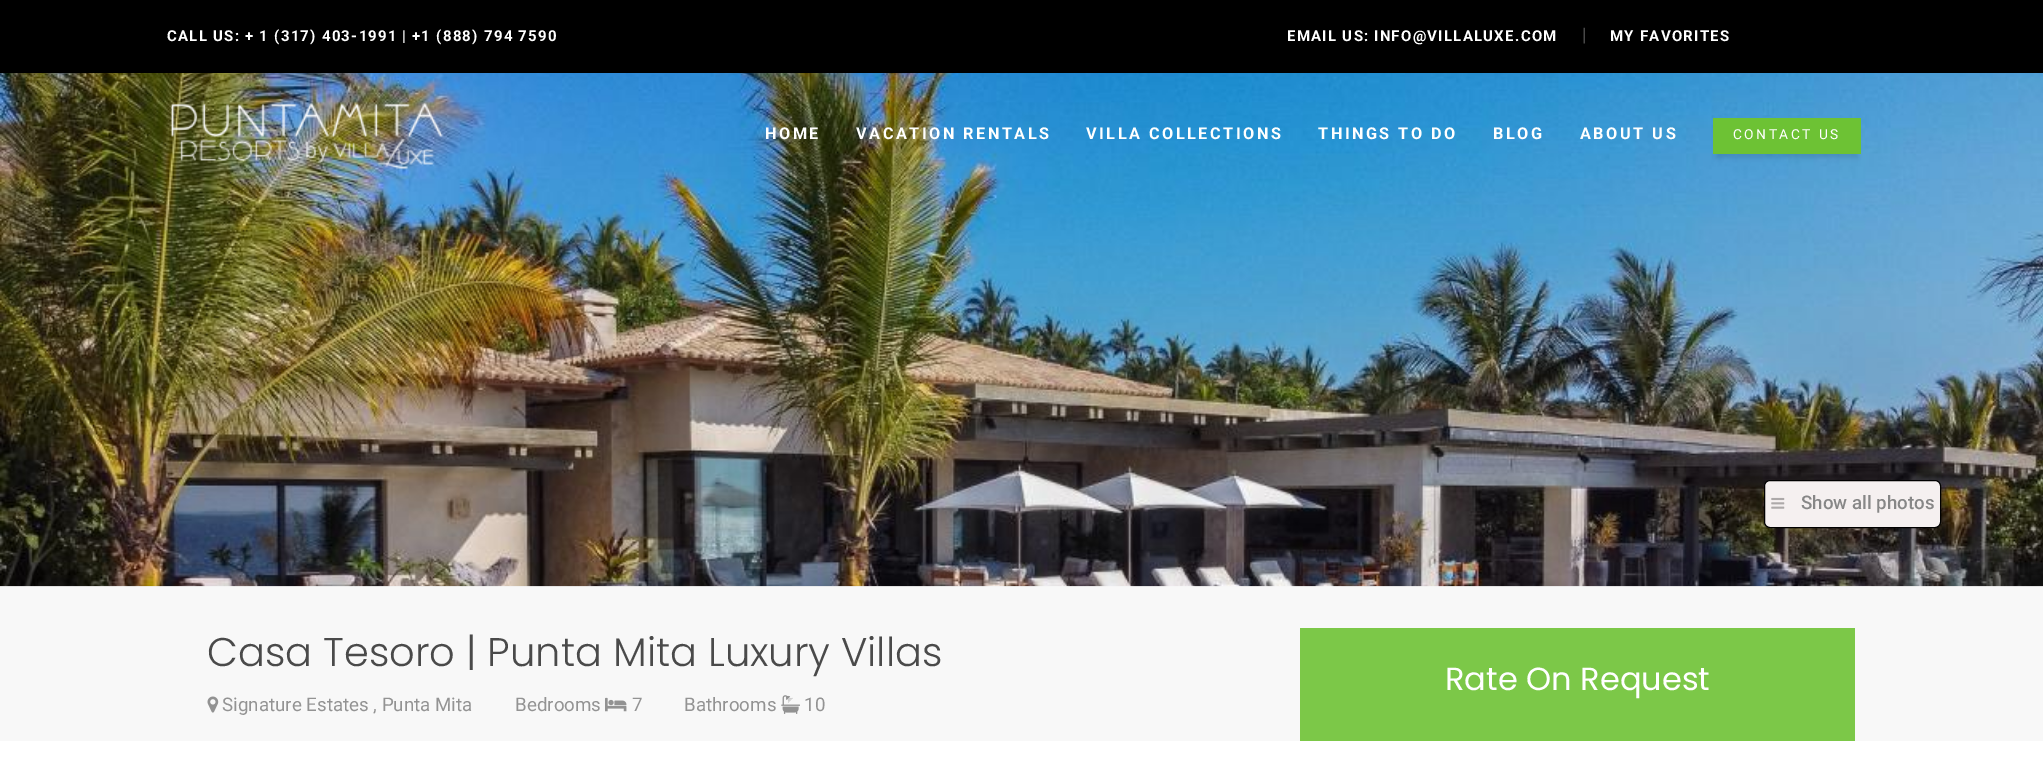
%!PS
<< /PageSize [2043 776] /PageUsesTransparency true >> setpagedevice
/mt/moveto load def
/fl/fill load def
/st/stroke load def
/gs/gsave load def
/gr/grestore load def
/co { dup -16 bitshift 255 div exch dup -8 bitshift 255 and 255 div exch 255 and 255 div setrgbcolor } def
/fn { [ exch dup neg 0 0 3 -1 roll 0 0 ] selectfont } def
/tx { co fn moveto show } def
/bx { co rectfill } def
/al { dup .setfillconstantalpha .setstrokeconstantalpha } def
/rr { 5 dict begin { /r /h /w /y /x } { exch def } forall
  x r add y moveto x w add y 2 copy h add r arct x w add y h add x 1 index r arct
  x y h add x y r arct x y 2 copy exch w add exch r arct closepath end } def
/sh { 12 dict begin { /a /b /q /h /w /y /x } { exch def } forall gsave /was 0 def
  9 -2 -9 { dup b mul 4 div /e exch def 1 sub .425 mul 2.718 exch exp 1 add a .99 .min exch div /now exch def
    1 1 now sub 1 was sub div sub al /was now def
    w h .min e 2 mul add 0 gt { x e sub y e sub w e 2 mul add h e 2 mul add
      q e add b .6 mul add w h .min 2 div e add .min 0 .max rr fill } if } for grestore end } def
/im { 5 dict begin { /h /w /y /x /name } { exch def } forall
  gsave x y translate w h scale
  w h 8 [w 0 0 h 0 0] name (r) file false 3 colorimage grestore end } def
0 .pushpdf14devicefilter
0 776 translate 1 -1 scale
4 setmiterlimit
0 0 2043 776 16#FFFFFF bx
0 0 2043 73 16#000000 bx
(media/2.raw) 0 73 2043 514 im
(media/1.raw) 170 102 273 68 im
1716 129 142 29 0 2 .1 sh
1713 118 148 36 16#6DC234 bx
16#F5F0F0 co
1764.5 480.5 176 47 5.5 rr gs fl gr
16#000000 co
st
(media/3.raw) 1771 497 14 12 im
0.9 al
0 586 2043 155 16#F7F7F7 bx
1 al
(media/4.raw) 207 696 12 17 im
(media/5.raw) 605 697 22 15 im
(media/6.raw) 781 695 19 19 im
1300 628 555 113 16#7CC848 bx
/Roboto-Bold 15 fn
16#FFFFFF co
167 41 mt 1.25 0 (CALL US:) ashow
245 41 mt 1.25 0 (+ 1 \(317\) 403-1991) ashow
402 41 mt 1.25 0 (|) ashow
412 41 mt 1.25 0 (+1 \(888\) 794 7590) ashow
1287 41 mt 1.25 0 (EMAIL US:) ashow
1374 41 mt 1.25 0 (INFO@VILLALUXE.COM) ashow
(|) 1582 41 /Roboto-Light 18.75 16#878787 tx
/Roboto-Bold 15 fn
16#FFFFFF co
1610 41 mt 1.25 0 (MY FAVORITES) ashow
/Roboto-Bold 16.25 fn
765 139 mt 2.5 0 (HOME) ashow
856 139 mt 2.5 0 (VACATION RENTALS) ashow
1086 139 mt 2.5 0 (VILLA COLLECTIONS) ashow
1318 139 mt 2.5 0 (THINGS TO DO) ashow
1493 139 mt 2.5 0 (BLOG) ashow
1580 139 mt 2.5 0 (ABOUT US) ashow
/Roboto-Regular 13.75 fn
1733 139 mt 2.5 0 (CONTACT US) ashow
(Show all photos) 1801 509 /Roboto-Medium 18.75 16#878787 tx
(Casa Tesoro | Punta Mita Luxury Villas) 207 666 /Poppins-Light 40 16#4A4A4A tx
(Signature Estates , Punta Mita) 222 711 /Roboto-Regular 18.75 16#939393 tx
(Bedrooms) 515 711 /Roboto-Regular 18.75 16#939393 tx
(7) 632 711 /Roboto-Regular 18.75 16#939393 tx
(Bathrooms) 684 711 /Roboto-Regular 18.75 16#939393 tx
(10) 804 711 /Roboto-Regular 18.75 16#939393 tx
(Rate On Request) 1445 690 /Poppins-Regular 32 16#FFFFFF tx
.poppdf14devicefilter showpage
